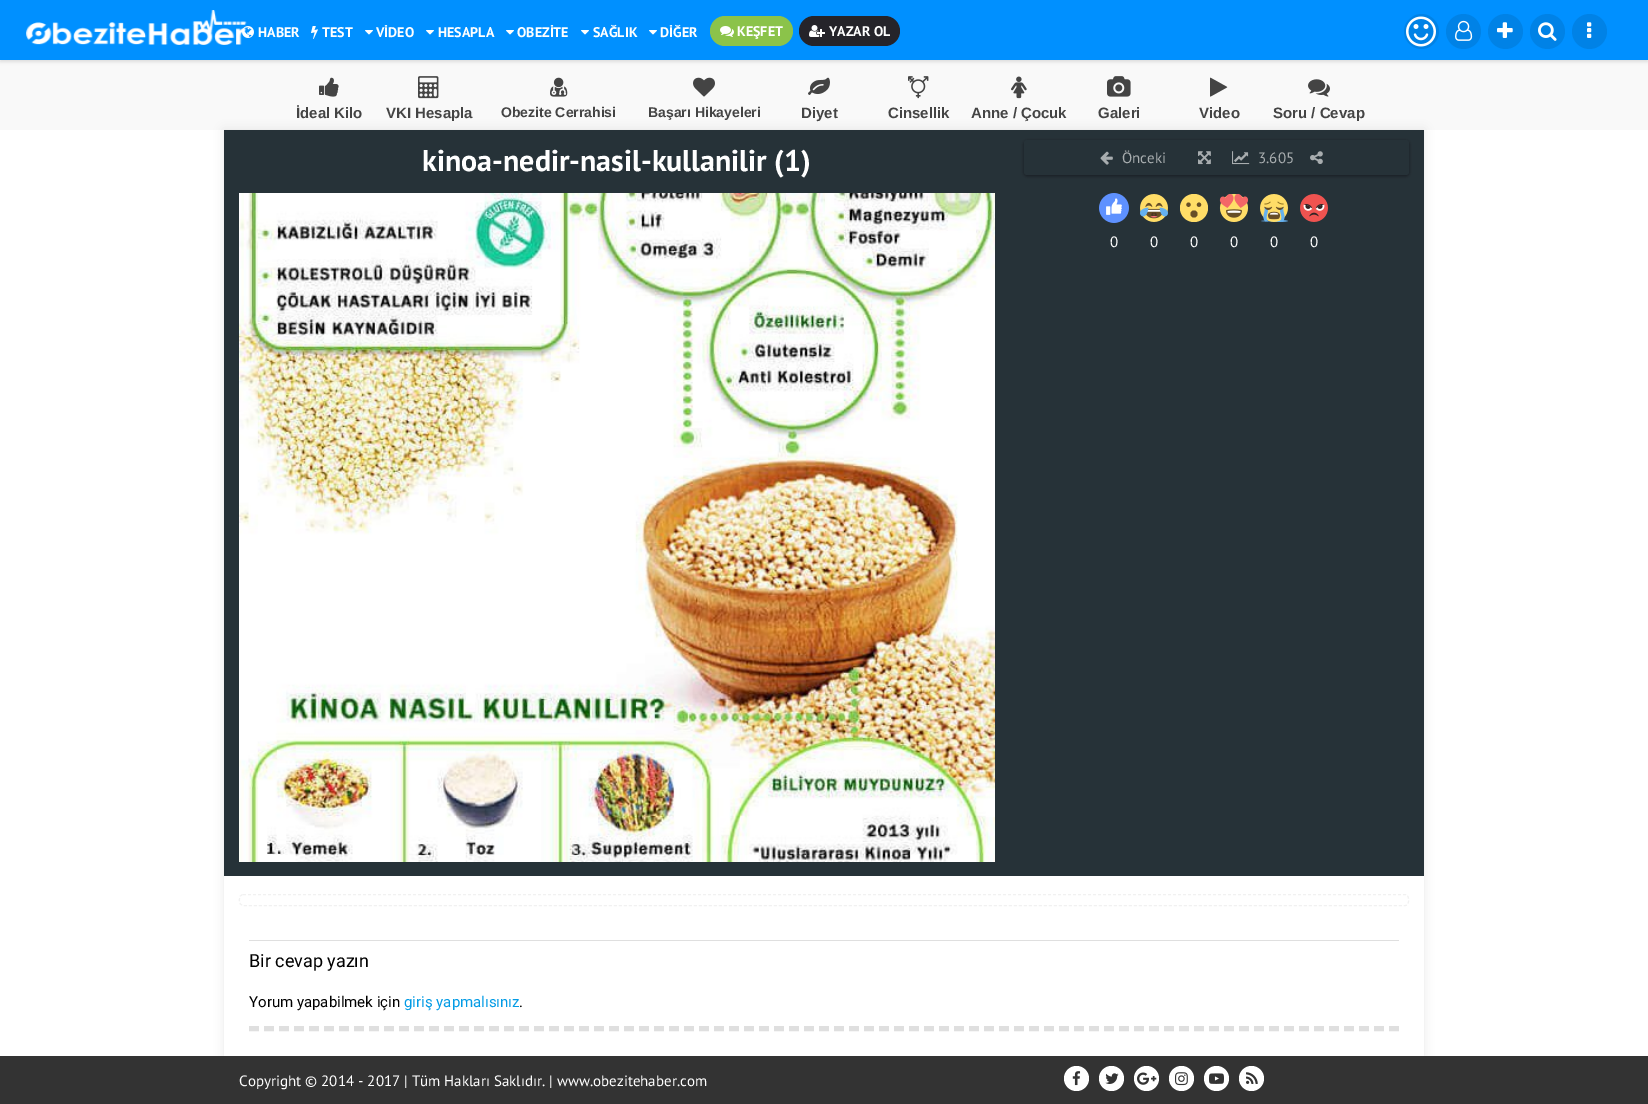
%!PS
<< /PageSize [1648 1104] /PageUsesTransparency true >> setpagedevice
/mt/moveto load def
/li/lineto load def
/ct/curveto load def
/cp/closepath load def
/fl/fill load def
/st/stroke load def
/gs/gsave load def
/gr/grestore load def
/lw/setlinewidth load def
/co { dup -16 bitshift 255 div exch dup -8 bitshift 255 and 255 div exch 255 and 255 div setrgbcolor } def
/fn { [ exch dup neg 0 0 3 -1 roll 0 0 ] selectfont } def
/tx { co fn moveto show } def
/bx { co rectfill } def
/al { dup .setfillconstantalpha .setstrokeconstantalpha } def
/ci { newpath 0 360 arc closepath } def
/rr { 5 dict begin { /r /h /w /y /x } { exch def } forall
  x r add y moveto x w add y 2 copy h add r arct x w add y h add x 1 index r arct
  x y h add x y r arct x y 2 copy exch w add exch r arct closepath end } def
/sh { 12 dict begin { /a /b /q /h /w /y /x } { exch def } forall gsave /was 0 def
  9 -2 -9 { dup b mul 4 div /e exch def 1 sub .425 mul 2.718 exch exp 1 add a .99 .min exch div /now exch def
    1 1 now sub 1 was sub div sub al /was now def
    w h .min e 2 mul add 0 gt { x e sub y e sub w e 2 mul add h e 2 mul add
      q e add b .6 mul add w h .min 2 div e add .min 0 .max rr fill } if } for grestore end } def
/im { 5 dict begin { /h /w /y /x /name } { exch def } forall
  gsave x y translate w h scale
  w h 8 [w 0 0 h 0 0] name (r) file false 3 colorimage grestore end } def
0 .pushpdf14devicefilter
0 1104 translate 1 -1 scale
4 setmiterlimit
0 0 1648 1104 16#FFFFFF bx
0 60 1648 70 16#F9F9F9 bx
16#000000 co
0 2 1648 60 0 1.5 .1 sh
0 0 1648 60 16#0090FF bx
(media/1.raw) 26 10 221 35 im
(media/2.raw) 242 26 12 12 im
(media/3.raw) 311 26 7 13 im
(media/4.raw) 365 30 8 5 im
(media/4.raw) 426 30 8 5 im
(media/4.raw) 506 30 8 5 im
(media/4.raw) 581 30 8 5 im
(media/4.raw) 649 30 8 5 im
16#8BC34A co
710 16 83 30 15 rr fl
(media/5.raw) 720 26 14 11 im
16#25242A co
799 16 101 30 15 rr fl
(media/6.raw) 809 25 16 12 im
16#0082E6 co
1421.5 31.5 17.5 ci fl
(media/7.raw) 1406 16 30 31 im
1463.5 31.5 17.5 ci fl
(media/8.raw) 1455 20 18 21 im
1505.5 31.5 17.5 ci fl
(media/9.raw) 1497 22 16 16 im
1547.5 31.5 17.5 ci fl
(media/10.raw) 1538 22 19 19 im
1589.5 31.5 17.5 ci fl
(media/11.raw) 1587 22 5 16 im
(media/12.raw) 319 77 20 20 im
(media/13.raw) 418 76 21 23 im
(media/14.raw) 550 77 18 20 im
(media/15.raw) 693 77 22 20 im
(media/16.raw) 808 77 22 18 im
(media/17.raw) 908 76 21 23 im
(media/18.raw) 1011 76 16 23 im
(media/19.raw) 1107 76 24 21 im
(media/20.raw) 1210 77 18 20 im
(media/21.raw) 1308 79 22 18 im
gs
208 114 mt 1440 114 li 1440 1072 li 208 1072 li cp 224 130 mt 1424 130 li 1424 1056 li 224 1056 li cp eoclip newpath
16#000000 co
224 130 1200 926 0 5 .09 sh
gr
224 130 1200 746 16#263238 bx
16#000000 co
1024 141 385 35 3 1.5 .38 sh
16#263238 co
1024 140 385 35 3 rr fl
(media/22.raw) 1100 151 13 14 im
(media/23.raw) 1198 151 13 14 im
(media/24.raw) 1232 151 18 14 im
(media/25.raw) 1310 151 13 13 im
(media/26.raw) 1099 193 30 30 im
(media/27.raw) 1140 194 28 28 im
16#FFDD67 co
1194 208 14 ci fl
16#664E27 co
1188.5 204.7 2.1 ci fl
1199 204.7 2.1 ci fl
1194 214 3.5 ci fl
(media/28.raw) 1219 193 29 29 im
(media/29.raw) 1260 194 28 28 im
(media/30.raw) 1300 194 28 28 im
(media/31.raw) 239 193 756 669 im
16#F1F1F1 co
[3 2] 0 setdash
243 894.5 mt 1405.5 894.5 li 1410 895.5 1410 904.5 1405.5 905.5 ct 243 905.5 li 238 905.5 238 894.5 243 894.5 ct cp st
249 940 1150 1 16#DFDFDF bx
5 lw
[10 5] 0 setdash
249 1028.5 mt 1399 1028.5 li st
0 1056 1648 48 16#333333 bx
16#FFFFFF co
1076.5 1078.5 12.5 ci fl
(media/32.raw) 1072 1071 9 15 im
1111.5 1078.5 12.5 ci fl
(media/33.raw) 1105 1073 14 11 im
1146.5 1078.5 12.5 ci fl
(media/34.raw) 1137 1072 20 13 im
1181.5 1078.5 12.5 ci fl
(media/35.raw) 1175 1072 13 14 im
1216.5 1078.5 12.5 ci fl
(media/36.raw) 1209 1073 15 11 im
1251.5 1078.5 12.5 ci fl
(media/37.raw) 1246 1072 12 12 im
(HABER) 258 37 /PTSans-Bold 14 16#FFFFFF tx
(TEST) 322 37 /PTSans-Bold 14 16#FFFFFF tx
(VİDEO) 376 37 /PTSans-Bold 14 16#FFFFFF tx
(HESAPLA) 438 37 /PTSans-Bold 14 16#FFFFFF tx
(OBEZİTE) 517 37 /PTSans-Bold 14 16#FFFFFF tx
(SAĞLIK) 593 37 /PTSans-Bold 14 16#FFFFFF tx
(DİĞER) 660 37 /PTSans-Bold 14 16#FFFFFF tx
(KEŞFET) 737 36 /PTSans-Bold 14 16#FFFFFF tx
(YAZAR OL) 829 36 /PTSans-Bold 14 16#FFFFFF tx
(İdeal Kilo) 296 118 /LiberationSans-Bold 15 16#444444 tx
(VKI Hesapla) 386 118 /LiberationSans-Bold 15 16#444444 tx
(Obezite Cerrahisi) 501 117 /LiberationSans-Bold 14 16#444444 tx
(Başarı Hikayeleri) 648 117 /LiberationSans-Bold 14 16#444444 tx
(Diyet) 801 118 /LiberationSans-Bold 15 16#444444 tx
(Cinsellik) 888 118 /LiberationSans-Bold 15 16#444444 tx
(Anne / Çocuk) 971 118 /LiberationSans-Bold 15 16#444444 tx
(Galeri) 1098 118 /LiberationSans-Bold 15 16#444444 tx
(Video) 1199 118 /LiberationSans-Bold 15 16#444444 tx
(Soru / Cevap) 1273 118 /LiberationSans-Bold 15 16#444444 tx
(kinoa-nedir-nasil-kullanilir \(1\)) 422 171 /PTSans-Bold 30 16#FFFFFF tx
(Önceki) 1122 163 /PTSans-Regular 15 16#A8ADAF tx
(3.605) 1258 163 /PTSans-Regular 15 16#A8ADAF tx
(0) 1110 247 /PTSans-Regular 15 16#FFFFFF tx
(0) 1150 247 /PTSans-Regular 15 16#FFFFFF tx
(0) 1190 247 /PTSans-Regular 15 16#FFFFFF tx
(0) 1230 247 /PTSans-Regular 15 16#FFFFFF tx
(0) 1270 247 /PTSans-Regular 15 16#FFFFFF tx
(0) 1310 247 /PTSans-Regular 15 16#FFFFFF tx
(Bir cevap yazın) 249 967 /Roboto-Regular 18 16#000000 tx
(Yorum yapabilmek için) 249 1007 /Roboto-Regular 15 16#000000 tx
(giriş yapmalısınız) 404 1007 /Roboto-Regular 15 16#039BE5 tx
(.) 519 1007 /Roboto-Regular 15 16#000000 tx
(Copyright © 2014 - 2017 | Tüm Hakları Saklıdır. | www.obezitehaber.com) 239 1086 /PTSans-Regular 15 16#FFFFFF tx
.poppdf14devicefilter showpage
